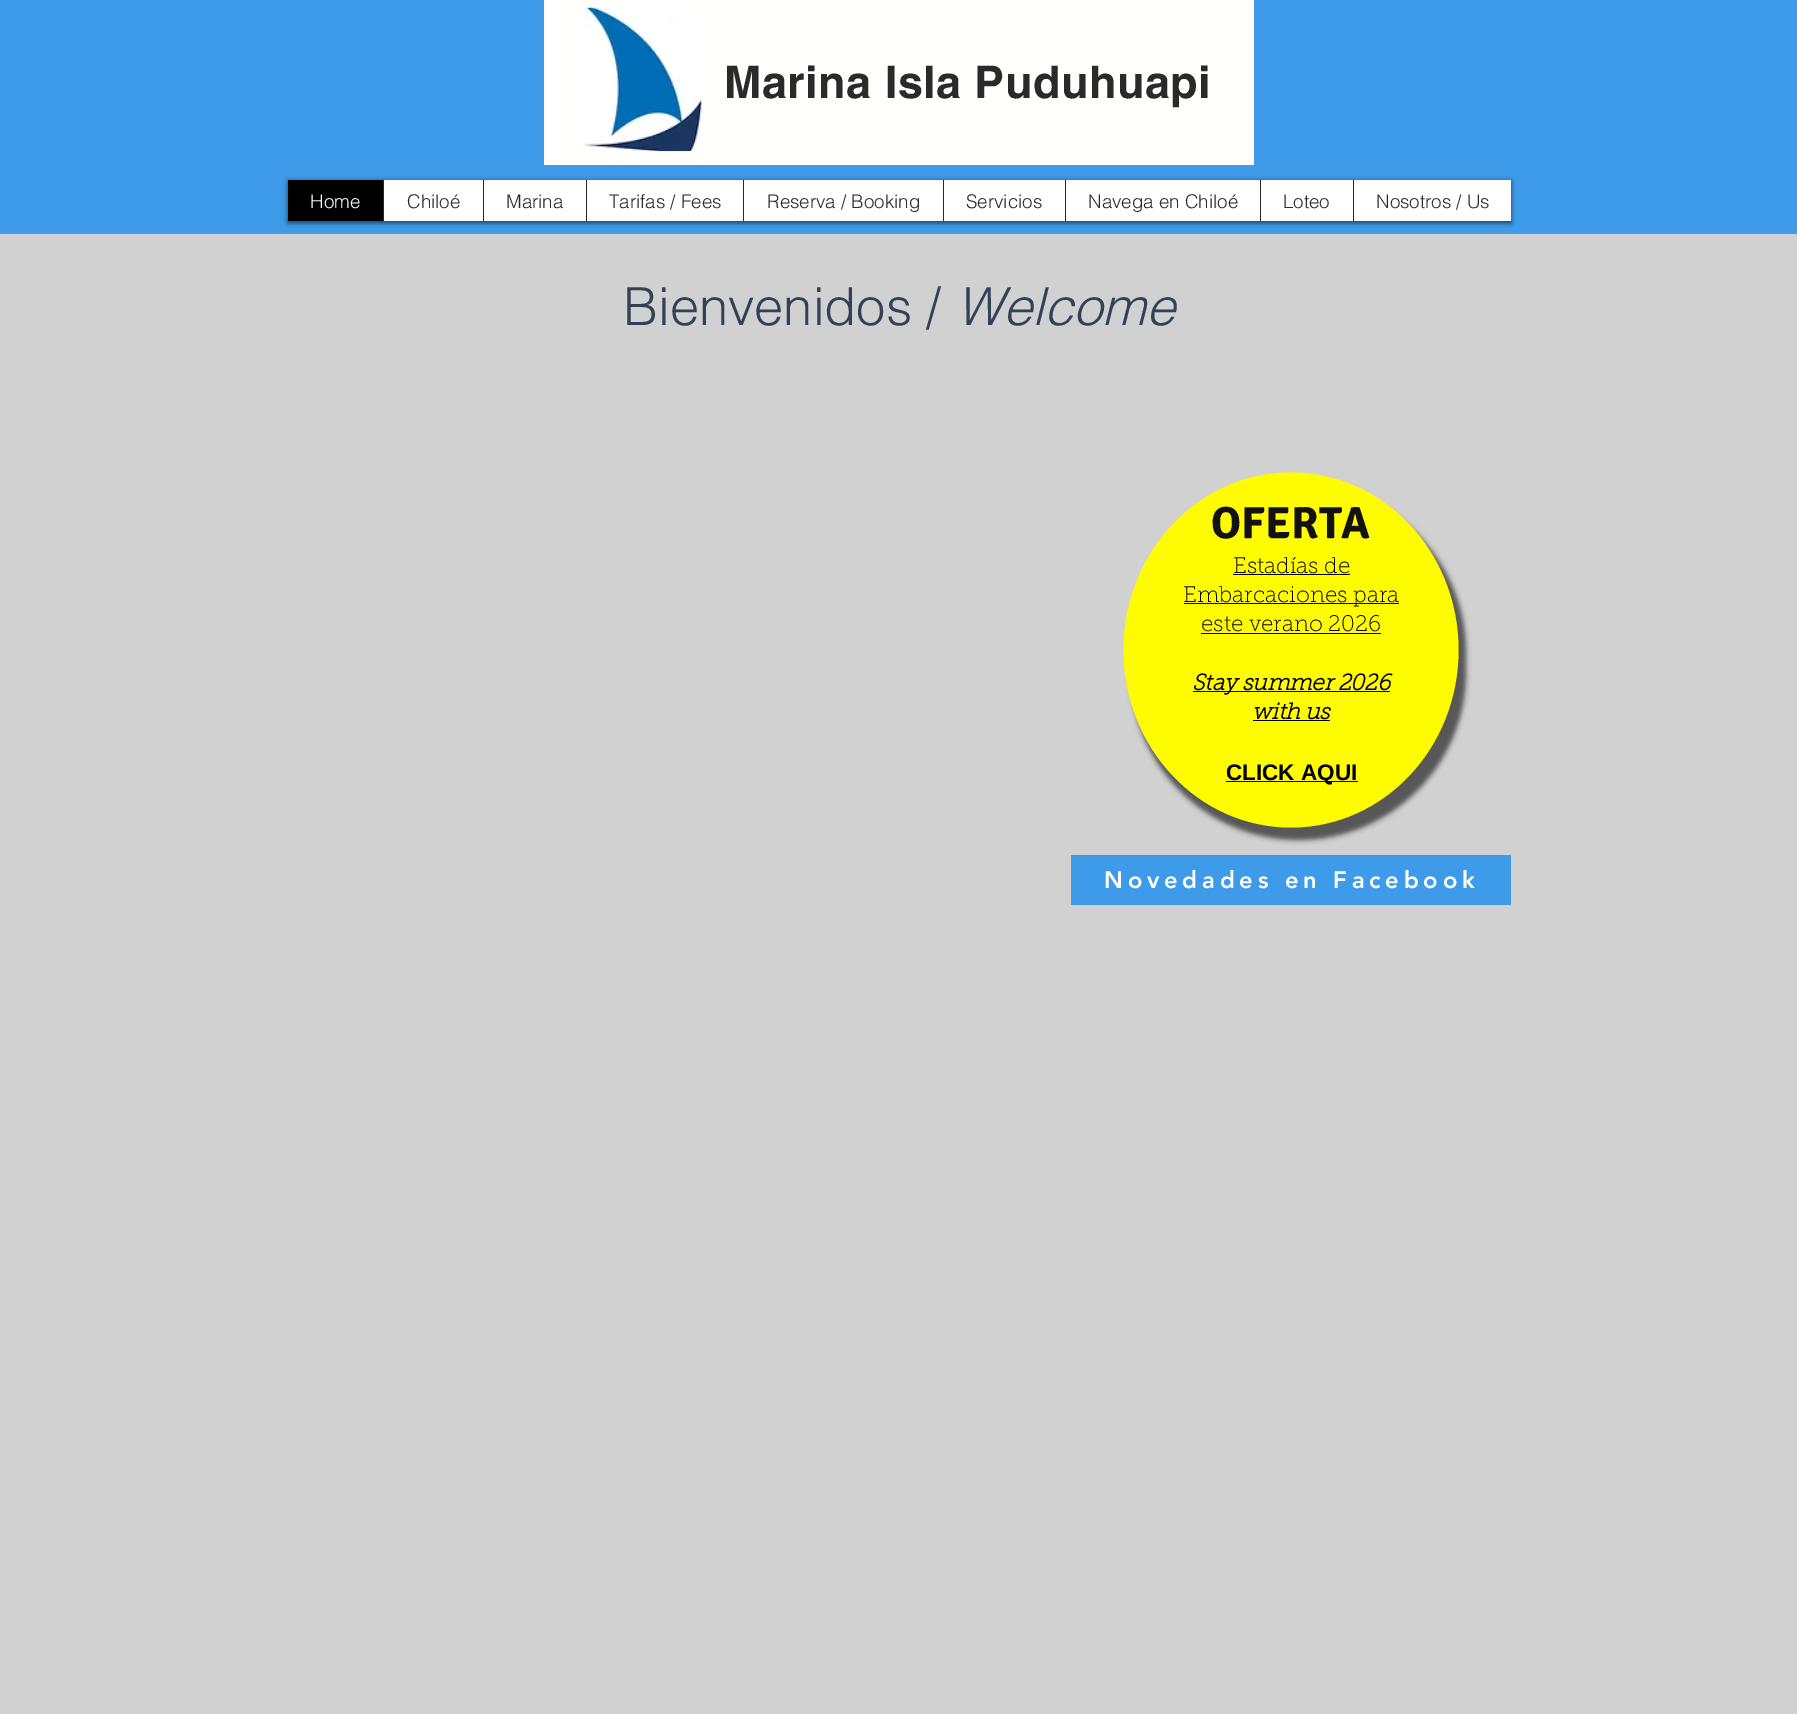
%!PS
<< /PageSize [1797 1714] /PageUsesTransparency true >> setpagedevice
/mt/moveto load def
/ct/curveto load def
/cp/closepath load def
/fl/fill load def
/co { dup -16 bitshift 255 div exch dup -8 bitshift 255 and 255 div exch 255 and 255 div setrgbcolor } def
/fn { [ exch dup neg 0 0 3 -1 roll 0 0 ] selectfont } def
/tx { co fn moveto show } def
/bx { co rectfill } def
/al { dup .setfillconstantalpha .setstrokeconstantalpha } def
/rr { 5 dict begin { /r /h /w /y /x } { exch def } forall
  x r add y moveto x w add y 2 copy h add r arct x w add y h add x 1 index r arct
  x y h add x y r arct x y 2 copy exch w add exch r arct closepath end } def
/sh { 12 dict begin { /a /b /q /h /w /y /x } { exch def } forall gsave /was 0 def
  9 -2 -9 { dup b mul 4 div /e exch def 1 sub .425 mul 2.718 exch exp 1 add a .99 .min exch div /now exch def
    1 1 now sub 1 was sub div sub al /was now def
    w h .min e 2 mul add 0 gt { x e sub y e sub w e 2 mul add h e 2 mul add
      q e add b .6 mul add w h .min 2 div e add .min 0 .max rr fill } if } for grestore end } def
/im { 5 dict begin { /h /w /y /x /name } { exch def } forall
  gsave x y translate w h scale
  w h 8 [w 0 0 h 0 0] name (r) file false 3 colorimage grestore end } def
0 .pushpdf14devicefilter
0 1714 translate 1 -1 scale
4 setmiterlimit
0 0 1797 1714 16#D1D1D1 bx
0 0 1797 234 16#3D9BE9 bx
544 0 710 165 16#FFFFFE bx
(media/1.raw) 582 7 120 145 im
16#000000 co
288 181 1223 42 0 2.5 .6 sh
384 180 1127 41 16#FFFFFF bx
288 180 95 41 16#000000 bx
383 180 1 41 16#2A2A2A bx
483 180 1 41 16#2A2A2A bx
586 180 1 41 16#2A2A2A bx
743 180 1 41 16#2A2A2A bx
943 180 1 41 16#2A2A2A bx
1065 180 1 41 16#2A2A2A bx
1260 180 1 41 16#2A2A2A bx
1353 180 1 41 16#2A2A2A bx
16#000000 co
1131 485 335 355 167.5 2.5 .6 sh
16#FFFB00 co
1291 472.5 mt 1383.5 472.5 1458.5 552 1458.5 650 ct 1458.5 748 1383.5 827.5 1291 827.5 ct 1198.5 827.5 1123.5 748 1123.5 650 ct 1123.5 552 1198.5 472.5 1291 472.5 ct cp fl
1233 574 117 1 16#000000 bx
1184 603 215 1 16#000000 bx
1201 633 180 1 16#000000 bx
1193 691 197 1 16#000000 bx
1253 720 77 1 16#000000 bx
1226 781 132 1 16#000000 bx
1071 855 440 50 16#3D9BE9 bx
/helvetica-Bold 45 fn
16#2A2A2A co
724 98 mt .45 0 (Marina Isla Puduhuapi) ashow
(Home) 310 208 /helvetica-Light 18.75 16#FFFFFF tx
(Chiloé) 407 208 /helvetica-Light 18.75 16#2A2A2A tx
(Marina) 506 208 /helvetica-Light 18.75 16#2A2A2A tx
(Tarifas / Fees) 609 208 /helvetica-Light 18.75 16#2A2A2A tx
(Reserva / Booking) 767 208 /helvetica-Light 18.75 16#2A2A2A tx
(Servicios) 966 208 /helvetica-Light 18.75 16#2A2A2A tx
(Navega en Chiloé) 1088 208 /helvetica-Light 18.75 16#2A2A2A tx
(Loteo) 1283 208 /helvetica-Light 18.75 16#2A2A2A tx
(Nosotros / Us) 1376 208 /helvetica-Light 18.75 16#2A2A2A tx
(Bienvenidos /) 623 325 /helvetica-Light 52.5 16#324158 tx
(Welcome) 956 325 /helvetica-LightItalic 52.5 16#324158 tx
(OFERTA) 1211 538 /Signika-Bold 45 16#121212 tx
(Estadías de) 1233 573 /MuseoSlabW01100-Thin 22.5 16#000000 tx
(Embarcaciones para) 1183 602 /MuseoSlabW01100-Thin 22.5 16#000000 tx
(este verano 2026) 1201 631 /MuseoSlabW01100-Thin 22.5 16#000000 tx
(Stay summer 2026) 1192 690 /MuseoSlabW01100-BoldItalic 22.5 16#000000 tx
(with us) 1252 719 /MuseoSlabW01100-BoldItalic 22.5 16#000000 tx
(CLICK AQUI) 1226 780 /LiberationSans-Bold 22.5 16#000000 tx
/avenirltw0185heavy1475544-Black 23.75 fn
16#FFFFFF co
1104 888 mt 4.75 0 (Novedades en Facebook) ashow
.poppdf14devicefilter showpage
